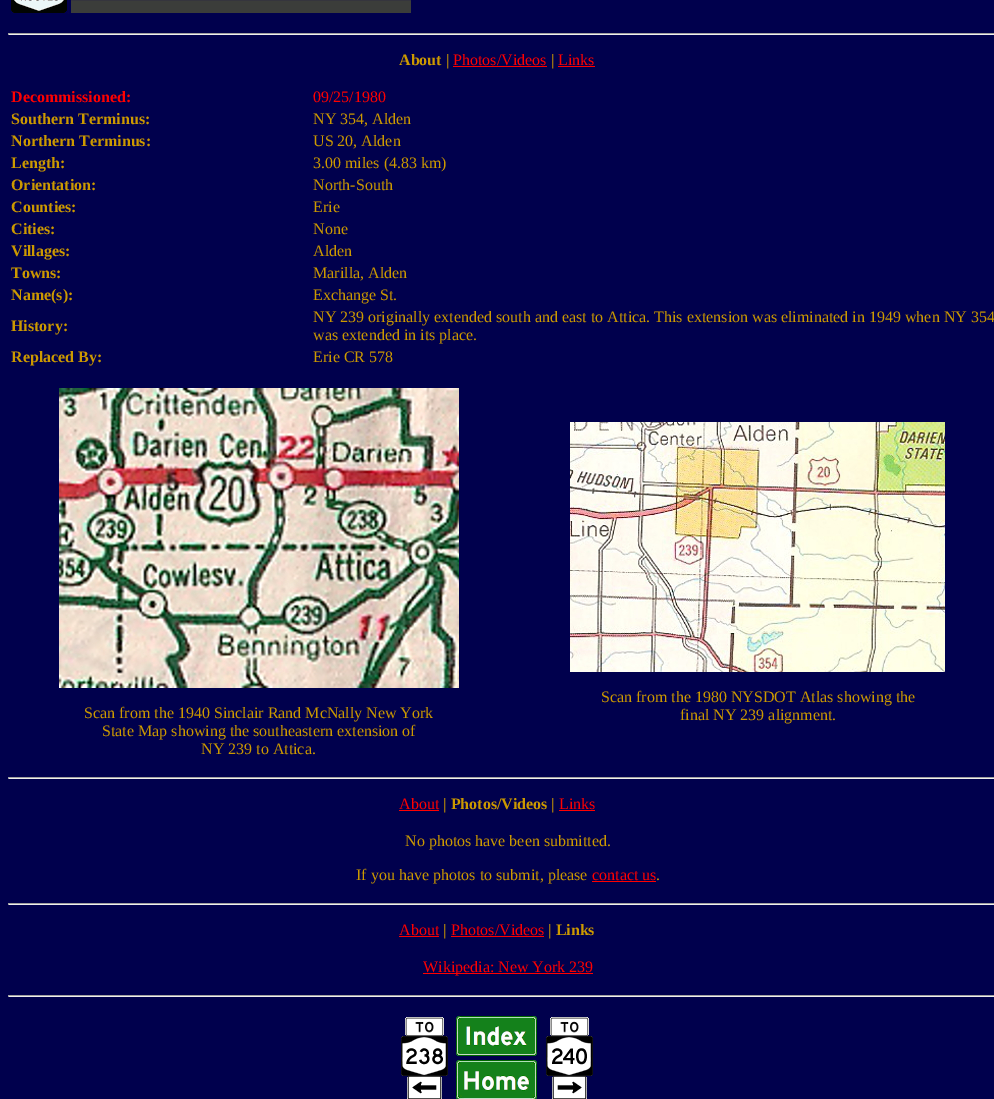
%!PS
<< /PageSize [994 1099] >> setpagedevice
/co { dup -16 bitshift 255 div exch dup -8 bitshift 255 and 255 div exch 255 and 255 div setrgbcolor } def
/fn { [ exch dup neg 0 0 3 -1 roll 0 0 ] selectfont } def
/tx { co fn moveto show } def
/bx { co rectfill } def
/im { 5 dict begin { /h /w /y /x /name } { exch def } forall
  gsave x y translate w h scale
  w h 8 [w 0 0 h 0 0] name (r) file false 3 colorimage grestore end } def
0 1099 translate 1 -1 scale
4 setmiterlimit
0 0 994 1099 16#00004D bx
(media/1.raw) 11 0 400 14 im
8 33 986 1 16#9F9F9F bx
8 34 986 1 16#EEEEEE bx
8 33 1 2 16#9F9F9F bx
453 66 94 1 16#FF0000 bx
558 66 37 1 16#FF0000 bx
(media/2.raw) 59 388 400 300 im
(media/3.raw) 570 422 375 250 im
8 777 986 1 16#9F9F9F bx
8 778 986 1 16#EEEEEE bx
8 777 1 2 16#9F9F9F bx
399 810 40 1 16#FF0000 bx
559 810 36 1 16#FF0000 bx
592 881 64 1 16#FF0000 bx
8 903 986 1 16#9F9F9F bx
8 904 986 1 16#EEEEEE bx
8 903 1 2 16#9F9F9F bx
399 936 40 1 16#FF0000 bx
451 936 93 1 16#FF0000 bx
423 973 170 1 16#FF0000 bx
8 995 986 1 16#9F9F9F bx
8 996 986 1 16#EEEEEE bx
8 995 1 2 16#9F9F9F bx
(media/4.raw) 401 1017 47 82 im
(media/5.raw) 456 1016 81 40 im
(media/6.raw) 546 1017 47 82 im
(media/7.raw) 456 1060 81 39 im
(About |) 399 65 /LiberationSerif-Bold 16 16#CC9900 tx
(Photos/Videos) 453 65 /LiberationSerif-Regular 16 16#FF0000 tx
(|) 551 65 /LiberationSerif-Bold 16 16#CC9900 tx
(Links) 558 65 /LiberationSerif-Regular 16 16#FF0000 tx
(Decommissioned:) 11 102 /LiberationSerif-Bold 16 16#FF0000 tx
(09/25/1980) 313 102 /LiberationSerif-Regular 16 16#FF0000 tx
(Southern Terminus:) 11 124 /LiberationSerif-Bold 16 16#CC9900 tx
(NY 354, Alden) 313 124 /LiberationSerif-Regular 16 16#CC9900 tx
(Northern Terminus:) 11 146 /LiberationSerif-Bold 16 16#CC9900 tx
(US 20, Alden) 313 146 /LiberationSerif-Regular 16 16#CC9900 tx
(Length:) 11 168 /LiberationSerif-Bold 16 16#CC9900 tx
(3.00 miles \(4.83 km\)) 313 168 /LiberationSerif-Regular 16 16#CC9900 tx
(Orientation:) 11 190 /LiberationSerif-Bold 16 16#CC9900 tx
(North-South) 313 190 /LiberationSerif-Regular 16 16#CC9900 tx
(Counties:) 11 212 /LiberationSerif-Bold 16 16#CC9900 tx
(Erie) 313 212 /LiberationSerif-Regular 16 16#CC9900 tx
(Cities:) 11 234 /LiberationSerif-Bold 16 16#CC9900 tx
(None) 313 234 /LiberationSerif-Regular 16 16#CC9900 tx
(Villages:) 11 256 /LiberationSerif-Bold 16 16#CC9900 tx
(Alden) 313 256 /LiberationSerif-Regular 16 16#CC9900 tx
(Towns:) 11 278 /LiberationSerif-Bold 16 16#CC9900 tx
(Marilla, Alden) 313 278 /LiberationSerif-Regular 16 16#CC9900 tx
(Name\(s\):) 11 300 /LiberationSerif-Bold 16 16#CC9900 tx
(Exchange St.) 313 300 /LiberationSerif-Regular 16 16#CC9900 tx
(History:) 11 331 /LiberationSerif-Bold 16 16#CC9900 tx
(NY 239 originally extended south and east to Attica. This extension was eliminated in 1949 when NY 354) 313 322 /LiberationSerif-Regular 16 16#CC9900 tx
(was extended in its place.) 313 340 /LiberationSerif-Regular 16 16#CC9900 tx
(Replaced By:) 11 362 /LiberationSerif-Bold 16 16#CC9900 tx
(Erie CR 578) 313 362 /LiberationSerif-Regular 16 16#CC9900 tx
(Scan from the 1940 Sinclair Rand McNally New York) 84 718 /LiberationSerif-Regular 16 16#CC9900 tx
(State Map showing the southeastern extension of) 102 736 /LiberationSerif-Regular 16 16#CC9900 tx
(NY 239 to Attica.) 201 754 /LiberationSerif-Regular 16 16#CC9900 tx
(Scan from the 1980 NYSDOT Atlas showing the) 601 702 /LiberationSerif-Regular 16 16#CC9900 tx
(final NY 239 alignment.) 680 720 /LiberationSerif-Regular 16 16#CC9900 tx
(About) 399 809 /LiberationSerif-Regular 16 16#FF0000 tx
(| Photos/Videos |) 443 809 /LiberationSerif-Bold 16 16#CC9900 tx
(Links) 559 809 /LiberationSerif-Regular 16 16#FF0000 tx
(No photos have been submitted.) 405 846 /LiberationSerif-Regular 16 16#CC9900 tx
(If you have photos to submit, please) 356 880 /LiberationSerif-Regular 16 16#CC9900 tx
(contact us) 592 880 /LiberationSerif-Regular 16 16#FF0000 tx
(.) 656 880 /LiberationSerif-Regular 16 16#CC9900 tx
(About) 399 935 /LiberationSerif-Regular 16 16#FF0000 tx
(|) 443 935 /LiberationSerif-Bold 16 16#CC9900 tx
(Photos/Videos) 451 935 /LiberationSerif-Regular 16 16#FF0000 tx
(| Links) 548 935 /LiberationSerif-Bold 16 16#CC9900 tx
(Wikipedia: New York 239) 423 972 /LiberationSerif-Regular 16 16#FF0000 tx
showpage
